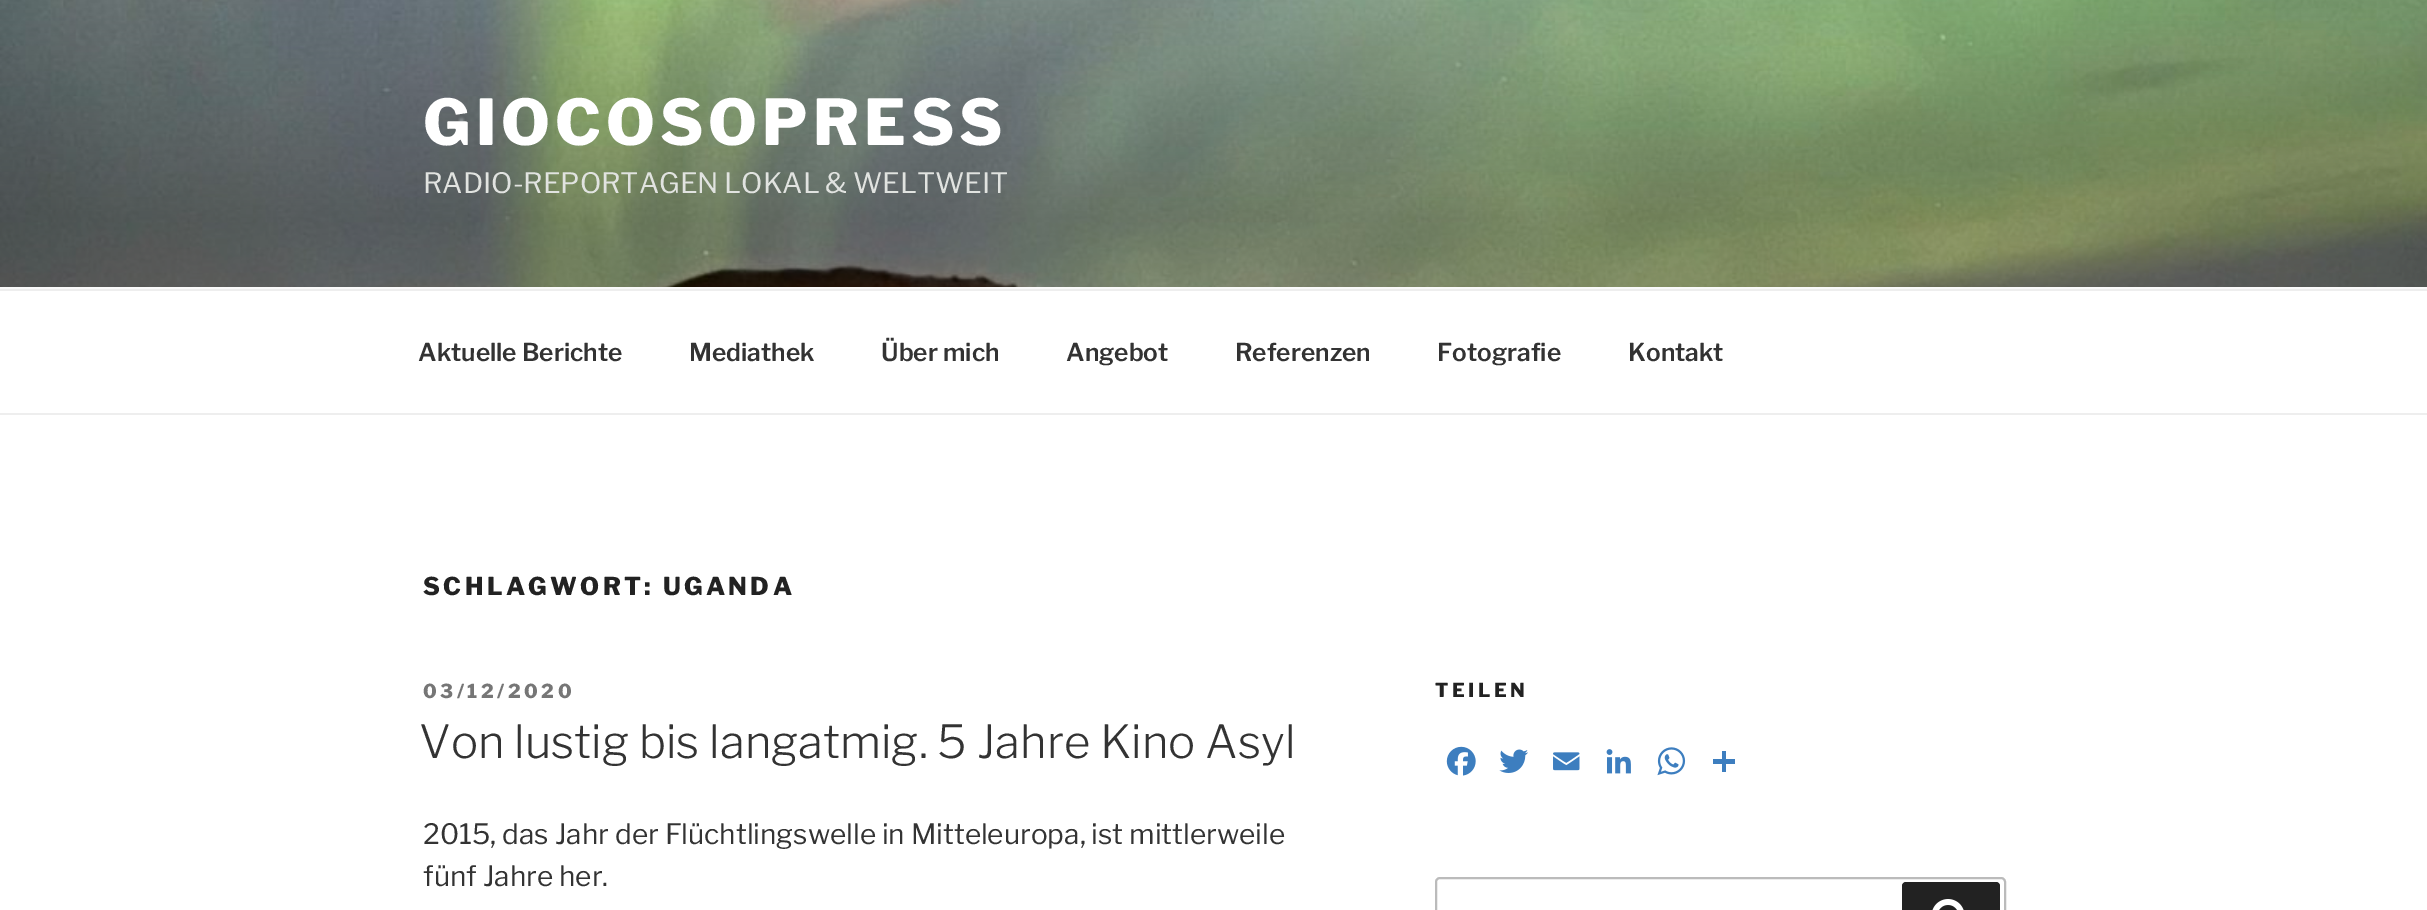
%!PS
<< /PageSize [2427 910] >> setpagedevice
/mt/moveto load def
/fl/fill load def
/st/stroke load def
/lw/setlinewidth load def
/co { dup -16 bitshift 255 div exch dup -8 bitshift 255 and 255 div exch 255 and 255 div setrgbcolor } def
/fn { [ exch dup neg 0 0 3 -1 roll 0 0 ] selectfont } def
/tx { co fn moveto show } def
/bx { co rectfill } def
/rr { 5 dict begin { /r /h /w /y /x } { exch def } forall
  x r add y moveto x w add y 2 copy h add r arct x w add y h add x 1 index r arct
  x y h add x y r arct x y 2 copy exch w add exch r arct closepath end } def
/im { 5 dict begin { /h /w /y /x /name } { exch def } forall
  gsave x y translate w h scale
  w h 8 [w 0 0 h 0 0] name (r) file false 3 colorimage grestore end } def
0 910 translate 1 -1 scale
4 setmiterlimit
0 0 2427 910 16#FFFFFF bx
0 287 2427 2 16#FAFAFA bx
(media/1.raw) 0 0 2427 287 im
0 289 2427 2 16#EEEEEE bx
0 413 2427 2 16#EEEEEE bx
(media/2.raw) 1446 746 30 30 im
(media/3.raw) 1499 749 29 24 im
(media/4.raw) 1553 752 27 19 im
(media/5.raw) 1606 749 25 25 im
(media/6.raw) 1657 747 29 29 im
1722 751 4 21 16#3D7EBF bx
1713 759 22 5 16#3D7EBF bx
16#BBBBBB co
2 lw
1436 878 569 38 4 rr st
16#222222 co
1902 882 98 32 4 rr fl
(media/7.raw) 1932 899 32 11 im
/LibreFranklin-Thin 63 fn
16#FFFFFF co
423 145 mt 5 0 (GIOCOSOPRESS) ashow
(RADIO-REPORTAGEN LOKAL & WELTWEIT) 423 193 /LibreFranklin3-Thin 28 16#E1E3E0 tx
(Aktuelle Berichte) 418 361 /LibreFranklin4-Thin 24.5 16#333333 tx
(Mediathek) 689 361 /LibreFranklin4-Thin 24.5 16#333333 tx
(Über mich) 881 361 /LibreFranklin4-Thin 24.5 16#333333 tx
(Angebot) 1066 361 /LibreFranklin4-Thin 24.5 16#333333 tx
(Referenzen) 1235 361 /LibreFranklin4-Thin 24.5 16#333333 tx
(Fotografie) 1437 361 /LibreFranklin4-Thin 24.5 16#333333 tx
(Kontakt) 1628 361 /LibreFranklin4-Thin 24.5 16#333333 tx
/LibreFranklin-Thin 24.5 fn
16#222222 co
423 595 mt 3.4 0 (SCHLAGWORT: UGANDA) ashow
/LibreFranklin-Thin 19.25 fn
16#767676 co
423 698 mt 3.5 0 (03/12/2020) ashow
(Von lustig bis langatmig. 5 Jahre Kino Asyl) 419 758 /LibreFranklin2-Thin 45.5 16#333333 tx
(2015, das Jahr der Flüchtlingswelle in Mitteleuropa, ist mittlerweile) 423 844 /LibreFranklin3-Thin 28 16#333333 tx
(fünf Jahre her.) 423 886 /LibreFranklin3-Thin 28 16#333333 tx
/LibreFranklin-Thin 19.25 fn
16#222222 co
1435 697 mt 3.5 0 (TEILEN) ashow
showpage
